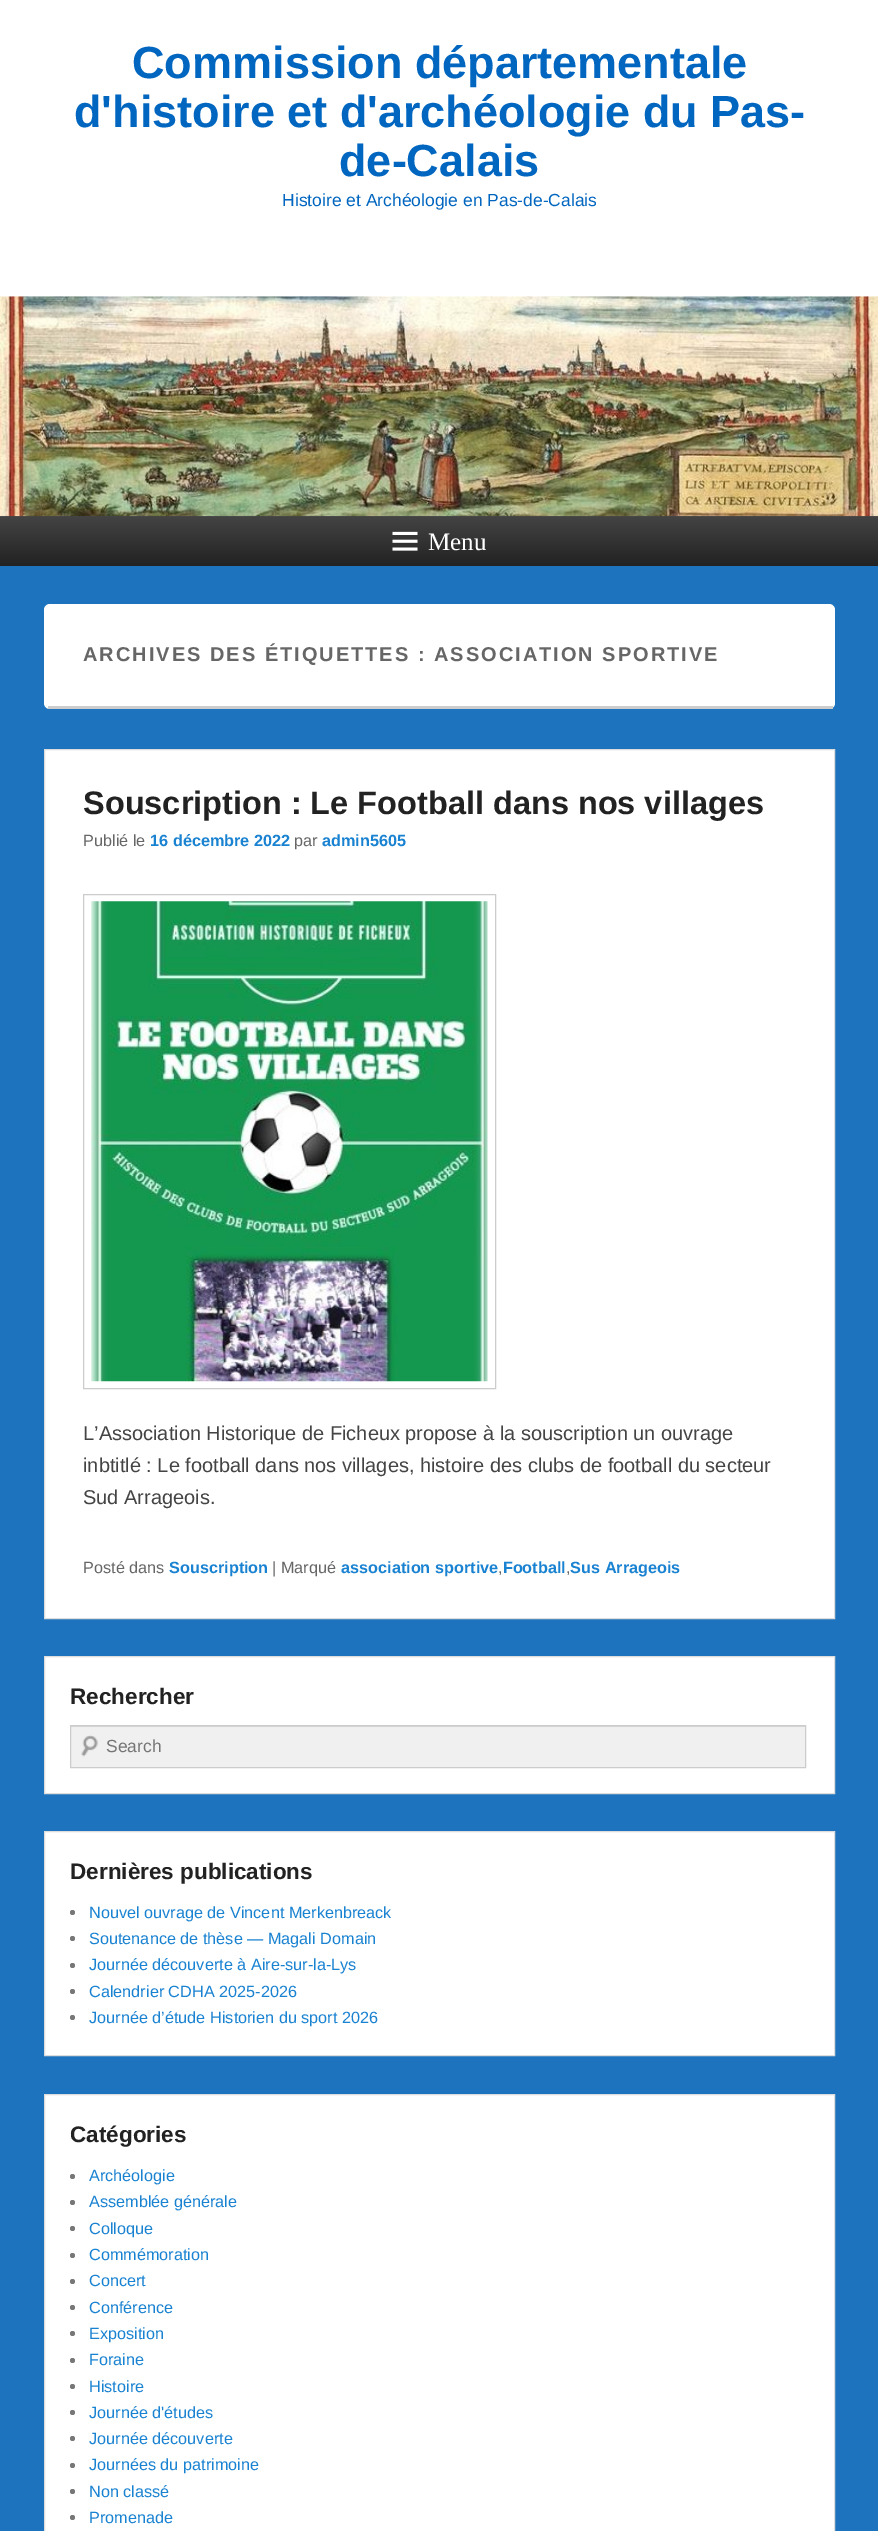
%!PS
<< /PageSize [878 2531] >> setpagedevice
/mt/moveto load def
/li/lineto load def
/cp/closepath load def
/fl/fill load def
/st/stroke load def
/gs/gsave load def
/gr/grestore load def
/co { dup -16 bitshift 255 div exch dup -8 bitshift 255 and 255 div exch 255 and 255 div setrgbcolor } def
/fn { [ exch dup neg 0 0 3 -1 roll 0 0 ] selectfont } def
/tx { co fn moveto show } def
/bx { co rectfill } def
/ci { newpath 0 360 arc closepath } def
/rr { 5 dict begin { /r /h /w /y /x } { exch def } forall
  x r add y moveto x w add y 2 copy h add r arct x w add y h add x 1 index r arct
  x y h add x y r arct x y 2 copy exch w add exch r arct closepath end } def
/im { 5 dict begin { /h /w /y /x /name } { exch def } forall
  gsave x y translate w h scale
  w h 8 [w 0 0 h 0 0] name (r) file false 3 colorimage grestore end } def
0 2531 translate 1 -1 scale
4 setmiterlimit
0 0 878 2531 16#1E73BE bx
0 0 878 297 16#FFFFFF bx
gs 0 516 mt 878 516 li 878 566 li 0 566 li cp clip newpath
<< /ShadingType 2 /ColorSpace /DeviceRGB /Coords [439 516 439 566] /Extend [true true] /Function << /FunctionType 2 /Domain [0 1] /C0 [.267 .267 .267] /C1 [.133 .133 .133] /N 1 >> >> shfill gr
(media/1.raw) 0 296 878 221 im
(media/2.raw) 392 531 26 20 im
44 604 791 105 6 rr fl
48 706 785 3 16#CCCCCC bx
16#FFFFFF co
44.5 749.5 mt 834.5 749.5 li 834.5 1618.5 li 44.5 1618.5 li cp gs fl gr
16#DDDDDD co
st
16#CCCCCC co
83.5 894.5 412 494 rectstroke
(media/3.raw) 91 901 397 481 im
16#FFFFFF co
44.5 1656.5 mt 834.5 1656.5 li 834.5 1793.5 li 44.5 1793.5 li cp gs fl gr
16#DDDDDD co
st
71 1727 734 40 16#F0F0F0 bx
(media/4.raw) 81 1735 17 22 im
71 1726 734 1 16#D8D8D8 bx
16#CCCCCC co
70.5 1725.5 735 42 rectstroke
16#FFFFFF co
44.5 1831.5 mt 834.5 1831.5 li 834.5 2055.5 li 44.5 2055.5 li cp gs fl gr
16#DDDDDD co
st
16#777777 co
72.5 1912.5 2.5 ci fl
72.5 1938.5 2.5 ci fl
72.5 1965.5 2.5 ci fl
72.5 1991.5 2.5 ci fl
72.5 2017.5 2.5 ci fl
16#FFFFFF co
44.5 2094.5 mt 834.5 2094.5 li 834.5 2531.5 li 44.5 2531.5 li cp gs fl gr
16#DDDDDD co
st
16#777777 co
72.5 2176.5 2.5 ci fl
72.5 2202.5 2.5 ci fl
72.5 2228.5 2.5 ci fl
72.5 2255.5 2.5 ci fl
72.5 2281.5 2.5 ci fl
72.5 2307.5 2.5 ci fl
72.5 2333.5 2.5 ci fl
72.5 2360.5 2.5 ci fl
72.5 2386.5 2.5 ci fl
72.5 2412.5 2.5 ci fl
72.5 2438.5 2.5 ci fl
72.5 2465.5 2.5 ci fl
72.5 2491.5 2.5 ci fl
72.5 2517.5 2.5 ci fl
(Commission départementale) 132 78 /LiberationSans-Bold 45 16#0066BF tx
(d'histoire et d'archéologie du Pas-) 74 127 /LiberationSans-Bold 45 16#0066BF tx
(de-Calais) 339 176 /LiberationSans-Bold 45 16#0066BF tx
(Histoire et Archéologie en Pas-de-Calais) 282 206 /LiberationSans-Regular 17.5 16#0066BF tx
(Menu) 428 550 /LiberationSerif-Regular 25 16#FFFFFF tx
/LiberationSans-Bold 20 fn
16#666666 co
83 661 mt 2 0 (ARCHIVES DES ÉTIQUETTES : ASSOCIATION SPORTIVE) ashow
(Souscription : Le Football dans nos villages) 83 814 /LiberationSans-Bold 32.5 16#222222 tx
(Publié le) 83 846 /LiberationSans-Regular 16.25 16#666666 tx
(16 décembre 2022) 150 846 /LiberationSans-Bold 16.25 16#1982D1 tx
(par) 294 846 /LiberationSans-Regular 16.25 16#666666 tx
(admin5605) 322 846 /LiberationSans-Bold 16.25 16#1982D1 tx
(L’Association Historique de Ficheux propose à la souscription un ouvrage) 83 1440 /LiberationSans-Regular 20 16#444444 tx
(inbtitlé : Le football dans nos villages, histoire des clubs de football du secteur) 83 1472 /LiberationSans-Regular 20 16#444444 tx
(Sud Arrageois.) 83 1504 /LiberationSans-Regular 20 16#444444 tx
(Posté dans) 83 1573 /LiberationSans-Regular 16.25 16#666666 tx
(Souscription) 169 1573 /LiberationSans-Bold 16.25 16#1982D1 tx
(| Marqué) 272 1573 /LiberationSans-Regular 16.25 16#666666 tx
(association sportive Football Sus Arrageois) 341 1573 /LiberationSans-Bold 16.25 16#1982D1 tx
(,) 498 1573 /LiberationSans-Regular 16.25 16#666666 tx
(,) 566 1573 /LiberationSans-Regular 16.25 16#666666 tx
(Rechercher) 70 1704 /LiberationSans-Bold 22.5 16#222222 tx
(Search) 106 1752 /LiberationSans-Regular 17.5 16#757575 tx
(Dernières publications) 70 1879 /LiberationSans-Bold 22.5 16#222222 tx
(Nouvel ouvrage de Vincent Merkenbreack) 89 1918 /LiberationSans-Regular 16.25 16#1982D1 tx
(Soutenance de thèse — Magali Domain) 89 1944 /LiberationSans-Regular 16.25 16#1982D1 tx
(Journée découverte à Aire-sur-la-Lys) 89 1970 /LiberationSans-Regular 16.25 16#1982D1 tx
(Calendrier CDHA 2025-2026) 89 1997 /LiberationSans-Regular 16.25 16#1982D1 tx
(Journée d’étude Historien du sport 2026) 89 2023 /LiberationSans-Regular 16.25 16#1982D1 tx
(Catégories) 70 2142 /LiberationSans-Bold 22.5 16#222222 tx
(Archéologie) 89 2181 /LiberationSans-Regular 16.25 16#1982D1 tx
(Assemblée générale) 89 2207 /LiberationSans-Regular 16.25 16#1982D1 tx
(Colloque) 89 2234 /LiberationSans-Regular 16.25 16#1982D1 tx
(Commémoration) 89 2260 /LiberationSans-Regular 16.25 16#1982D1 tx
(Concert) 89 2286 /LiberationSans-Regular 16.25 16#1982D1 tx
(Conférence) 89 2313 /LiberationSans-Regular 16.25 16#1982D1 tx
(Exposition) 89 2339 /LiberationSans-Regular 16.25 16#1982D1 tx
(Foraine) 89 2365 /LiberationSans-Regular 16.25 16#1982D1 tx
(Histoire) 89 2392 /LiberationSans-Regular 16.25 16#1982D1 tx
(Journée d'études) 89 2418 /LiberationSans-Regular 16.25 16#1982D1 tx
(Journée découverte) 89 2444 /LiberationSans-Regular 16.25 16#1982D1 tx
(Journées du patrimoine) 89 2470 /LiberationSans-Regular 16.25 16#1982D1 tx
(Non classé) 89 2497 /LiberationSans-Regular 16.25 16#1982D1 tx
(Promenade) 89 2523 /LiberationSans-Regular 16.25 16#1982D1 tx
showpage
